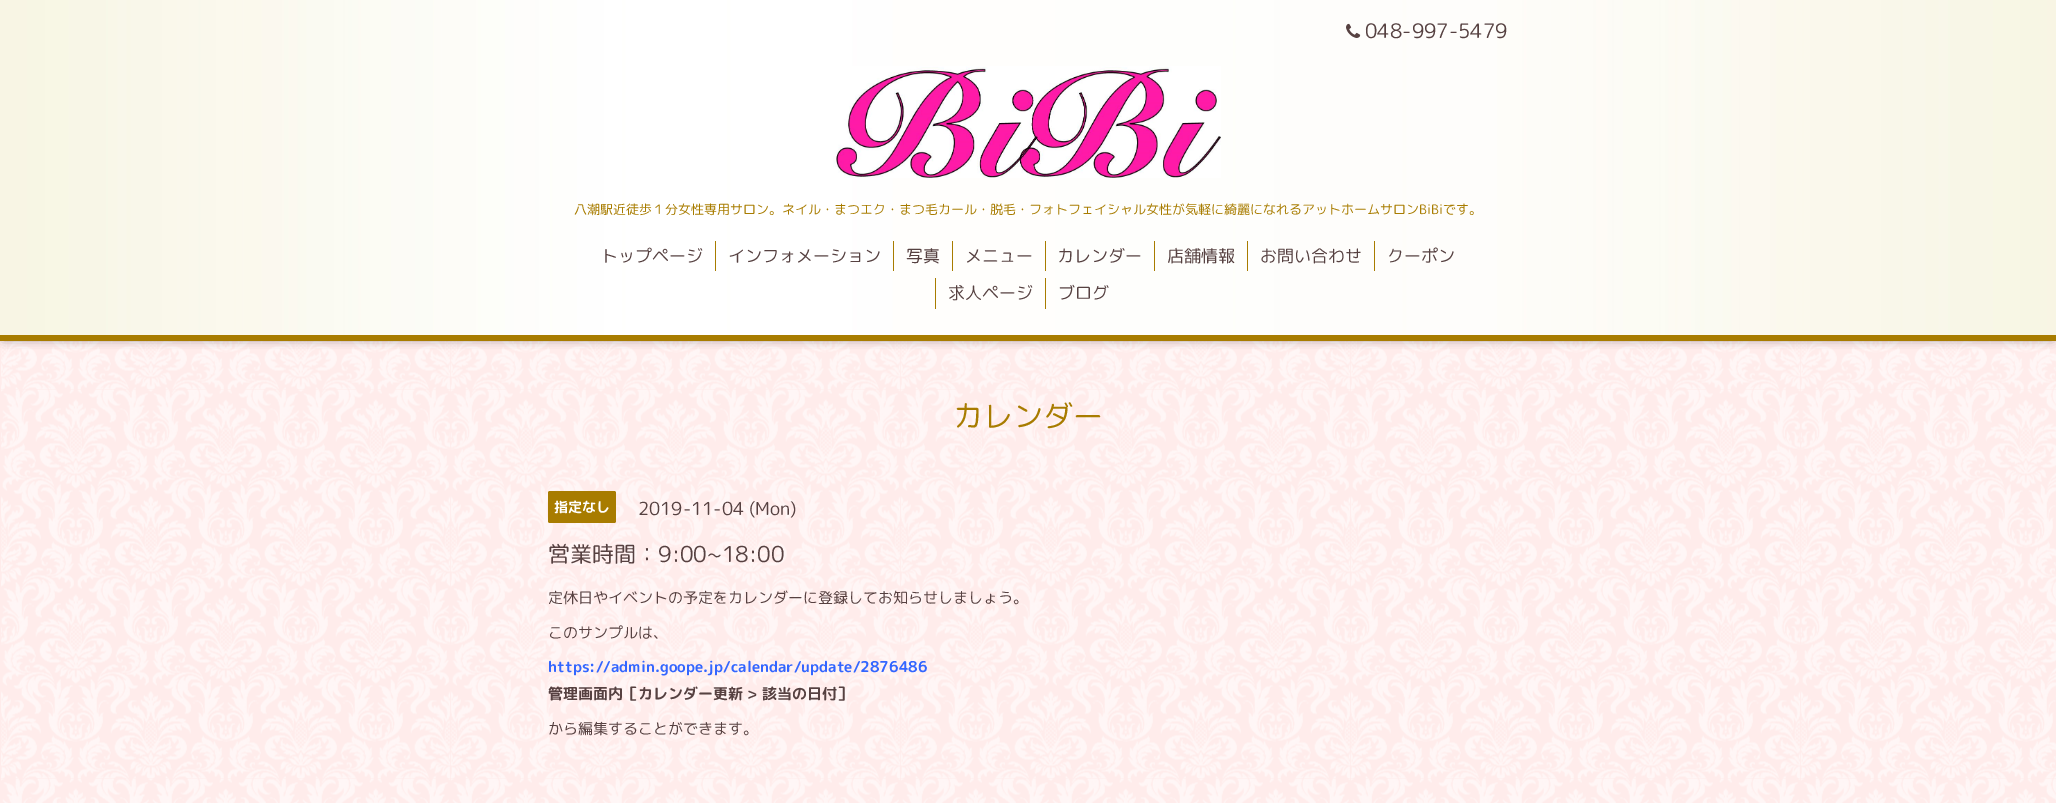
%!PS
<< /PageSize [2056 803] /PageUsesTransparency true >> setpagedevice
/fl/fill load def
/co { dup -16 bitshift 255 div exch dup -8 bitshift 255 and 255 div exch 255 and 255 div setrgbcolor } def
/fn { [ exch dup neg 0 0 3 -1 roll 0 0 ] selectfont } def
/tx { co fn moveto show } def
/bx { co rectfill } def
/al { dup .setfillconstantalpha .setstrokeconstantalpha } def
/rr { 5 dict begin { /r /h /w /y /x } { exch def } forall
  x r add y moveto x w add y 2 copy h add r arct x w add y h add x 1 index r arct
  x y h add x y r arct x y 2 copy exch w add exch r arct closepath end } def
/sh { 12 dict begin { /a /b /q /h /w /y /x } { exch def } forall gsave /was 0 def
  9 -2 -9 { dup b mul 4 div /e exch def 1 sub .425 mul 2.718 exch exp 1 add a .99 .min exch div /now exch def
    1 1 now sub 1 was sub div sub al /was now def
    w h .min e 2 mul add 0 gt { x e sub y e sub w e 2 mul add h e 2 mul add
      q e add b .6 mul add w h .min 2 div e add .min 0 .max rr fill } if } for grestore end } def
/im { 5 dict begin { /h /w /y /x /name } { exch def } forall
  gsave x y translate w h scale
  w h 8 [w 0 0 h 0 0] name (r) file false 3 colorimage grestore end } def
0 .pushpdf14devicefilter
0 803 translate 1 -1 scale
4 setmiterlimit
0 0 2056 803 16#FFECEB bx
(media/1.raw) 1 341 2055 462 im
16#000000 co
4 5 2048 333 0 5 .6 sh
(media/2.raw) 0 0 2056 335 im
0 335 2056 6 16#A87C00 bx
(media/3.raw) 1346 23 15 15 im
(media/4.raw) 833 66 388 112 im
715 241 1 30 16#A87C00 bx
893 241 1 30 16#A87C00 bx
952 241 1 30 16#A87C00 bx
1045 241 1 30 16#A87C00 bx
1154 241 1 30 16#A87C00 bx
1247 241 1 30 16#A87C00 bx
1374 241 1 30 16#A87C00 bx
935 278 1 31 16#A87C00 bx
1045 278 1 31 16#A87C00 bx
548 491 68 32 2 rr fl
(048-997-5479) 1365 38 /RoundedMplus1c-Regular 20 16#564141 tx
(八潮駅近徒歩１分女性専用サロン。ネイル・まつエク・まつ毛カール・脱毛・フォトフェイシャル女性が気軽に綺麗になれるアットホームサロンBiBiです。) 574 214 /RoundedMplus1c-Regular 13 16#A87C00 tx
(トップページ) 601 262 /RoundedMplus1c-Regular 17 16#564141 tx
(インフォメーション) 728 262 /RoundedMplus1c-Regular 17 16#564141 tx
(写真) 906 262 /RoundedMplus1c-Regular 17 16#564141 tx
(メニュー) 965 262 /RoundedMplus1c-Regular 17 16#564141 tx
(カレンダー) 1057 262 /RoundedMplus1c-Regular 17 16#564141 tx
(店舗情報) 1167 262 /RoundedMplus1c-Regular 17 16#564141 tx
(お問い合わせ) 1260 262 /RoundedMplus1c-Regular 17 16#564141 tx
(クーポン) 1387 262 /RoundedMplus1c-Regular 17 16#564141 tx
(求人ページ) 948 299 /RoundedMplus1c-Regular 17 16#564141 tx
(ブログ) 1058 299 /RoundedMplus1c-Regular 17 16#564141 tx
(カレンダー) 953 427 /RoundedMplus1c-Regular 30 16#A87C00 tx
(指定なし) 554 512 /RoundedMplus1cBold-Bold 14 16#FFFFFF tx
(2019-11-04 \(Mon\)) 638 515 /RoundedMplus1c-Regular 18 16#564141 tx
(営業時間：9:00~18:00) 548 562 /RoundedMplus1c-Regular 22 16#564141 tx
(定休日やイベントの予定をカレンダーに登録してお知らせしましょう。) 548 603 /RoundedMplus1c-Regular 15 16#564141 tx
(このサンプルは、) 548 638 /RoundedMplus1c-Regular 15 16#564141 tx
(https://admin.goope.jp/calendar/update/2876486) 548 672 /RoundedMplus1cBold-Bold 15 16#3366FF tx
(管理画面内［カレンダー更新 > 該当の日付］) 548 699 /RoundedMplus1cBold-Bold 15 16#564141 tx
(から編集することができます。) 548 734 /RoundedMplus1c-Regular 15 16#564141 tx
.poppdf14devicefilter showpage
